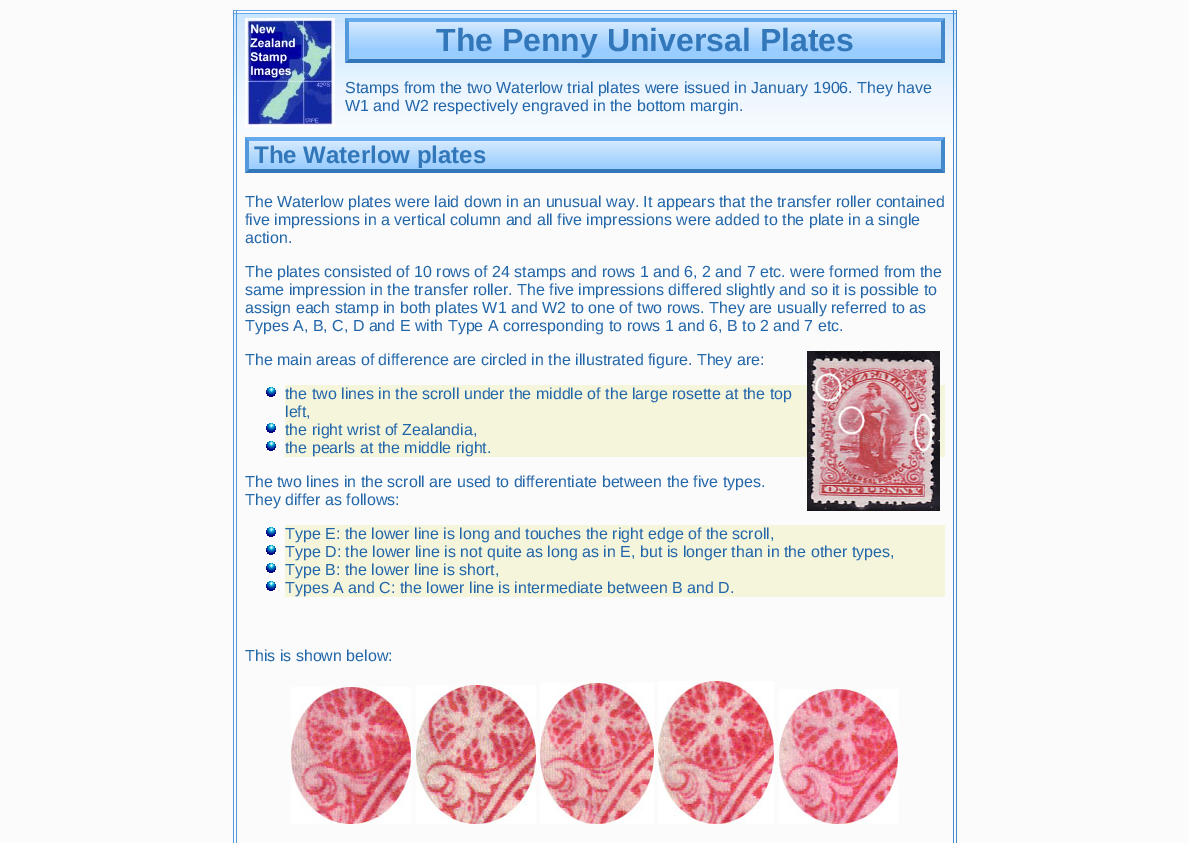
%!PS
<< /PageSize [1189 843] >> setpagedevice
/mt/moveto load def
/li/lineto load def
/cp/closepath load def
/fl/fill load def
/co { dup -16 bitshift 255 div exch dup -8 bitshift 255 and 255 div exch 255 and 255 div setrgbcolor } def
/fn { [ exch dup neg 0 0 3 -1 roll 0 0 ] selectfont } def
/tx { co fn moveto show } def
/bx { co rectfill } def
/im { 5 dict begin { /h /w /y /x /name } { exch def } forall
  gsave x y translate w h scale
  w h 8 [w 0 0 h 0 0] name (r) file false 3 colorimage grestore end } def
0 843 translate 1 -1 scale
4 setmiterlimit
0 0 1189 843 16#FBFBFB bx
(media/1.raw) 234 14 722 120 im
233 10 724 1 16#66AAEE bx
233 13 724 1 16#66AAEE bx
953 10 1 833 16#4488CC bx
956 10 1 833 16#4488CC bx
233 10 1 833 16#5599DD bx
236 10 1 833 16#5599DD bx
(media/2.raw) 245 18 90 109 im
345 18 600 45 16#99CCFF bx
(media/3.raw) 349 22 592 26 im
16#66AAEE co
345 18 mt 945 18 li 941 22 li 349 22 li cp fl
16#4488CC co
945 18 mt 945 63 li 941 59 li 941 22 li cp fl
16#3377BB co
945 63 mt 345 63 li 349 59 li 941 59 li cp fl
16#5599DD co
345 63 mt 345 18 li 349 22 li 349 59 li cp fl
245 137 700 36 16#99CCFF bx
(media/4.raw) 249 141 692 26 im
16#66AAEE co
245 137 mt 945 137 li 941 141 li 249 141 li cp fl
16#4488CC co
945 137 mt 945 173 li 941 169 li 941 141 li cp fl
16#3377BB co
945 173 mt 245 173 li 249 169 li 941 169 li cp fl
16#5599DD co
245 173 mt 245 137 li 249 141 li 249 169 li cp fl
285 385 660 72 16#F5F5DC bx
(media/5.raw) 807 351 133 160 im
(media/6.raw) 266 387 10 10 im
(media/6.raw) 266 423 10 10 im
(media/6.raw) 266 441 10 10 im
285 525 660 72 16#F5F5DC bx
(media/6.raw) 266 527 10 10 im
(media/6.raw) 266 545 10 10 im
(media/6.raw) 266 563 10 10 im
(media/6.raw) 266 581 10 10 im
(media/7.raw) 291 687 120 137 im
(media/8.raw) 416 685 120 139 im
(media/9.raw) 540 683 114 141 im
(media/10.raw) 658 681 116 143 im
(media/11.raw) 779 689 119 135 im
(The Penny Universal Plates) 436 51 /LiberationSans-Bold 32 16#3377BB tx
(Stamps from the two Waterlow trial plates were issued in January 1906. They have) 345 93 /LiberationSans-Regular 16 16#2266AA tx
(W1 and W2 respectively engraved in the bottom margin.) 345 111 /LiberationSans-Regular 16 16#2266AA tx
(The Waterlow plates) 254 163 /LiberationSans-Bold 24 16#3377BB tx
(The Waterlow plates were laid down in an unusual way. It appears that the transfer roller contained) 245 207 /LiberationSans-Regular 16 16#2266AA tx
(five impressions in a vertical column and all five impressions were added to the plate in a single) 245 225 /LiberationSans-Regular 16 16#2266AA tx
(action.) 245 243 /LiberationSans-Regular 16 16#2266AA tx
(The plates consisted of 10 rows of 24 stamps and rows 1 and 6, 2 and 7 etc. were formed from the) 245 277 /LiberationSans-Regular 16 16#2266AA tx
(same impression in the transfer roller. The five impressions differed slightly and so it is possible to) 245 295 /LiberationSans-Regular 16 16#2266AA tx
(assign each stamp in both plates W1 and W2 to one of two rows. They are usually referred to as) 245 313 /LiberationSans-Regular 16 16#2266AA tx
(Types A, B, C, D and E with Type A corresponding to rows 1 and 6, B to 2 and 7 etc.) 245 331 /LiberationSans-Regular 16 16#2266AA tx
(The main areas of difference are circled in the illustrated figure. They are:) 245 365 /LiberationSans-Regular 16 16#2266AA tx
(the two lines in the scroll under the middle of the large rosette at the top) 285 399 /LiberationSans-Regular 16 16#2266AA tx
(left,) 285 417 /LiberationSans-Regular 16 16#2266AA tx
(the right wrist of Zealandia,) 285 435 /LiberationSans-Regular 16 16#2266AA tx
(the pearls at the middle right.) 285 453 /LiberationSans-Regular 16 16#2266AA tx
(The two lines in the scroll are used to differentiate between the five types.) 245 487 /LiberationSans-Regular 16 16#2266AA tx
(They differ as follows:) 245 505 /LiberationSans-Regular 16 16#2266AA tx
(Type E: the lower line is long and touches the right edge of the scroll,) 285 539 /LiberationSans-Regular 16 16#2266AA tx
(Type D: the lower line is not quite as long as in E, but is longer than in the other types,) 285 557 /LiberationSans-Regular 16 16#2266AA tx
(Type B: the lower line is short,) 285 575 /LiberationSans-Regular 16 16#2266AA tx
(Types A and C: the lower line is intermediate between B and D.) 285 593 /LiberationSans-Regular 16 16#2266AA tx
(This is shown below:) 245 661 /LiberationSans-Regular 16 16#2266AA tx
showpage
